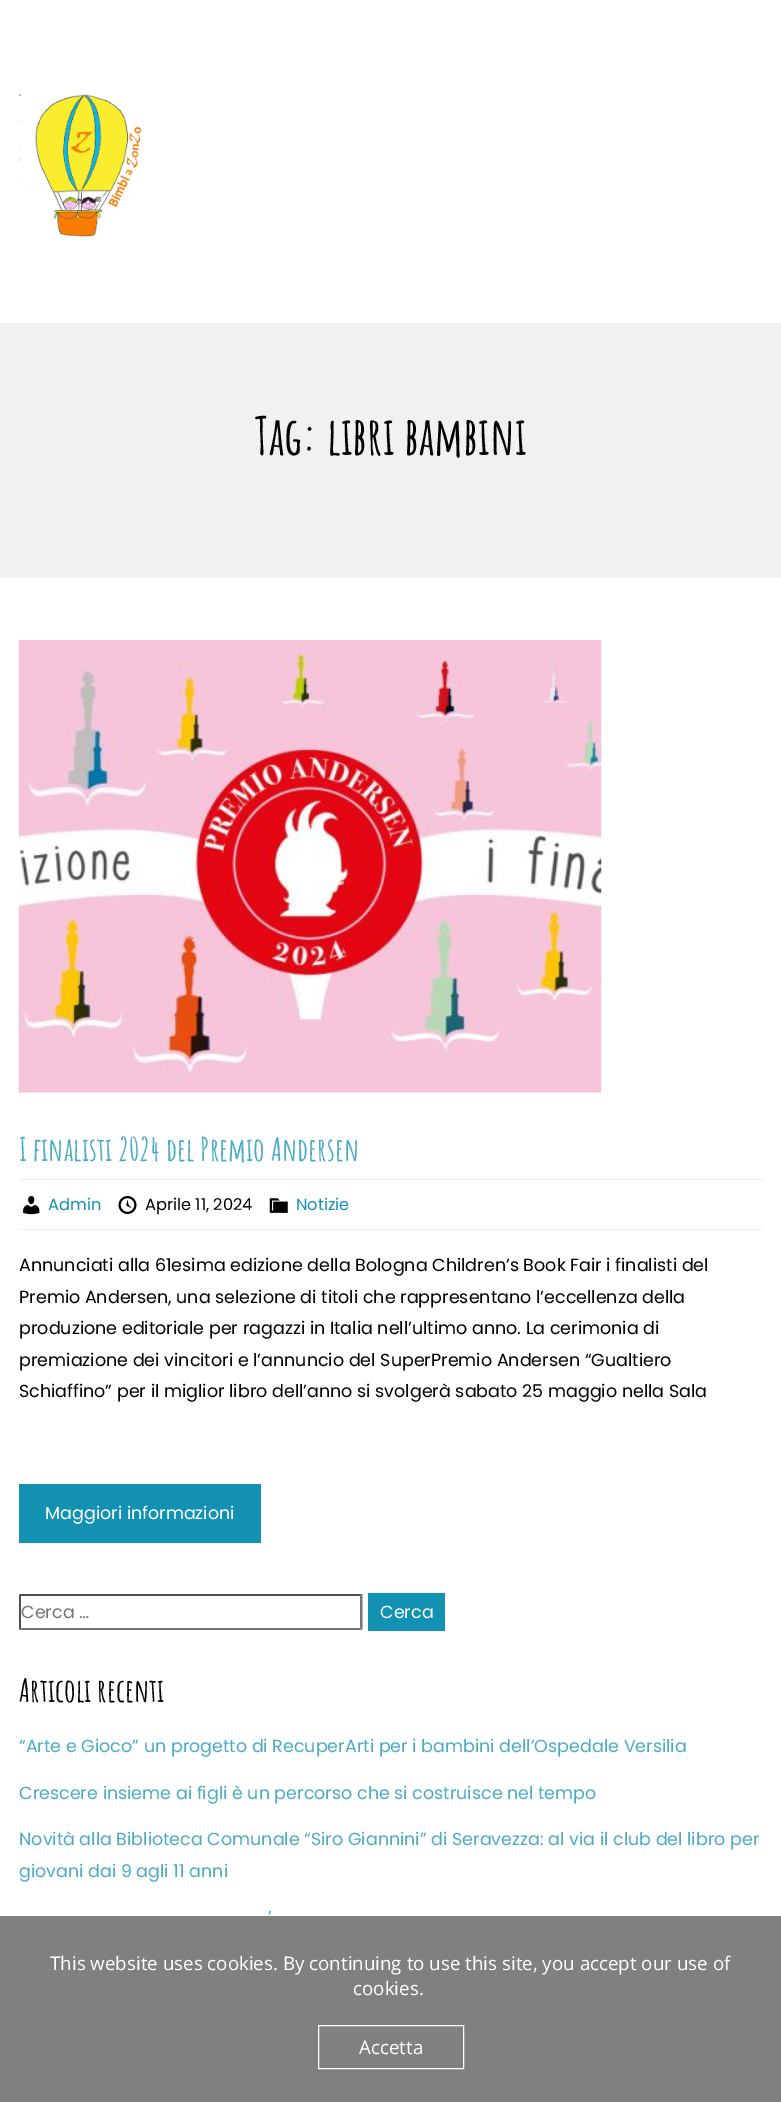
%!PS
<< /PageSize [781 2102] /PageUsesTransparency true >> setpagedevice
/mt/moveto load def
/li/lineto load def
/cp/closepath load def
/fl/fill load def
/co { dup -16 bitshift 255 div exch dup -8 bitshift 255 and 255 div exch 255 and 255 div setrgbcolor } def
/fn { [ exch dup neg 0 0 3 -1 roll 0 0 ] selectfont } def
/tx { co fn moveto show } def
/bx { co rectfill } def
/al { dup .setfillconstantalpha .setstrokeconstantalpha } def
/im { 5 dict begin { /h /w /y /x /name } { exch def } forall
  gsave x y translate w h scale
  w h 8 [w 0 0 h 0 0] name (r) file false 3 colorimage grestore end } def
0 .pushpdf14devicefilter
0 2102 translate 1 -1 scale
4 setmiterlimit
0 0 781 2102 16#FFFFFF bx
(media/1.raw) 18 94 124 143 im
0 323 781 255 16#F1F1F1 bx
(media/2.raw) 18 640 584 453 im
19 1179 744 1 16#EEEEEE bx
19 1229 744 1 16#EEEEEE bx
(media/3.raw) 23 1196 17 19 im
(media/4.raw) 118 1196 19 18 im
(media/5.raw) 269 1198 19 15 im
19 1484 242 59 16#1391B2 bx
16#4F4F4F co
19 1594 mt 362 1594 li 360 1596 li 21 1596 li cp fl
16#767676 co
362.5 1594 mt 362.5 1630 li 360 1627.5 li 360 1596 li cp fl
362 1630 mt 19 1630 li 21 1628 li 360 1628 li cp fl
16#4F4F4F co
19 1630 mt 19 1594 li 21 1596 li 21 1627.5 li cp fl
368 1593 77 38 16#1391B2 bx
0.97 al
0 1916 781 186 16#7C7C7C bx
1 al
16#FFFFFF co
318.5 2025.5 145 43 rectstroke
(Tag: libri bambini) 255 455 /AmaticSC-Bold 52 16#000000 tx
(I finalisti 2024 del Premio Andersen) 19 1161 /AmaticSC-Bold 32 16#4AABC7 tx
(Admin) 48 1210 /Poppins-Regular 16.25 16#1391B2 tx
(Aprile 11, 2024) 145 1210 /Poppins-Regular 16.25 16#000000 tx
(Notizie) 296 1210 /Poppins-Regular 16.25 16#1391B2 tx
(Annunciati alla 61esima edizione della Bologna Children’s Book Fair i finalisti del) 19 1271 /Poppins-Regular 17.5 16#000000 tx
(Premio Andersen, una selezione di titoli che rappresentano l’eccellenza della) 19 1303 /Poppins-Regular 17.5 16#000000 tx
(produzione editoriale per ragazzi in Italia nell’ultimo anno. La cerimonia di) 19 1334 /Poppins-Regular 17.5 16#000000 tx
(premiazione dei vincitori e l’annuncio del SuperPremio Andersen “Gualtiero) 19 1366 /Poppins-Regular 17.5 16#000000 tx
(Schiaffino” per il miglior libro dell’anno si svolgerà sabato 25 maggio nella Sala) 19 1397 /Poppins-Regular 17.5 16#000000 tx
(Maggiori informazioni) 45 1519 /Poppins-Regular 17.5 16#FFFFFF tx
(Cerca …) 21 1618 /Poppins-Regular 17.5 16#757575 tx
(Cerca) 380 1618 /Poppins-Regular 17.5 16#FFFFFF tx
(Articoli recenti) 19 1702 /AmaticSC-Bold 32 16#000000 tx
(“Arte e Gioco” un progetto di RecuperArti per i bambini dell’Ospedale Versilia) 19 1752 /Poppins-Regular 17.5 16#4AABC7 tx
(Crescere insieme ai figli è un percorso che si costruisce nel tempo) 19 1799 /Poppins-Regular 17.5 16#4AABC7 tx
(Novità alla Biblioteca Comunale “Siro Giannini” di Seravezza: al via il club del libro per) 19 1845 /Poppins-Regular 17.5 16#4AABC7 tx
(giovani dai 9 agli 11 anni) 19 1877 /Poppins-Regular 17.5 16#4AABC7 tx
(’) 268 1923 /Poppins-Regular 17.5 16#4AABC7 tx
(This website uses cookies. By continuing to use this site, you accept our use of) 50 1970 /OpenSans-Regular 18.75 16#FFFFFF tx
(cookies.) 353 1995 /OpenSans-Regular 18.75 16#FFFFFF tx
(Accetta) 359 2054 /OpenSans-Regular 18.75 16#FFFFFF tx
.poppdf14devicefilter showpage
